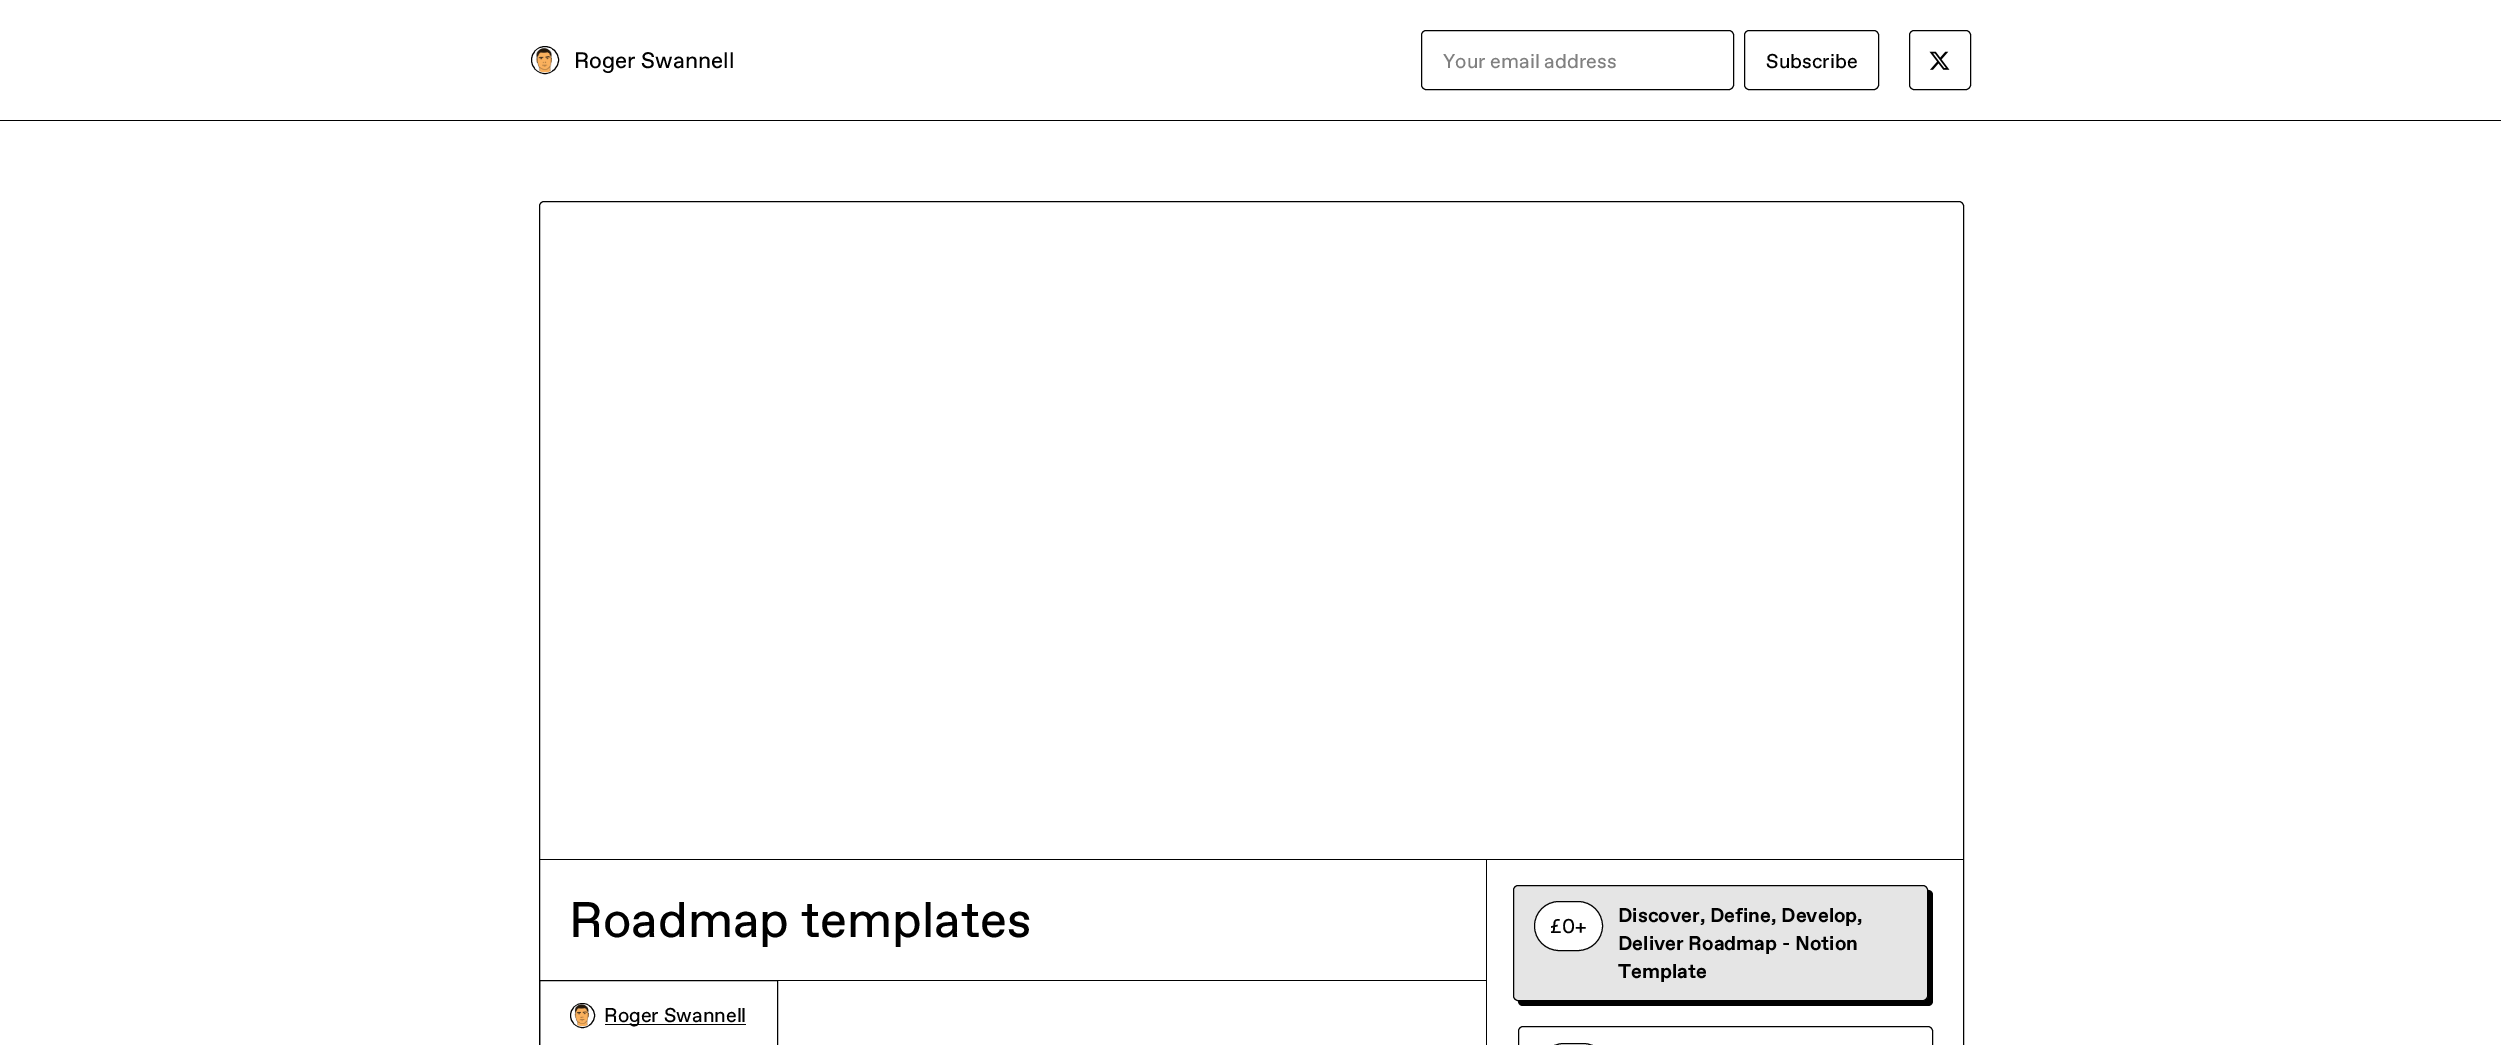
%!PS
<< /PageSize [2501 1045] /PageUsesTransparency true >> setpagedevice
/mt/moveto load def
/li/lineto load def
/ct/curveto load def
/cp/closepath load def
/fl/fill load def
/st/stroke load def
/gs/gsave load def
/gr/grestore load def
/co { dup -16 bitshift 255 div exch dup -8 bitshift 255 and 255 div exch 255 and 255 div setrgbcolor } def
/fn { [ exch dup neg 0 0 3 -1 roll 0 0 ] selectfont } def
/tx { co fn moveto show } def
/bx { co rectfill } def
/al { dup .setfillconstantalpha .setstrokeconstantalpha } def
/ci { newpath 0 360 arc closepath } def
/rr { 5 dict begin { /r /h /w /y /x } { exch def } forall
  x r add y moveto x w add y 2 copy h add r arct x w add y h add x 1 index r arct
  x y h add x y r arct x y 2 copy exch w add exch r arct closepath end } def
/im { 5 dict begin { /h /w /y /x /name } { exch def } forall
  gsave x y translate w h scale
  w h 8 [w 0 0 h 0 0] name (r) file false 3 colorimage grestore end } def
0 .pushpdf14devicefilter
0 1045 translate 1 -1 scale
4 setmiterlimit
0 0 2501 1045 16#FFFFFF bx
0 120 2501 1 16#000000 bx
545 60 13.5 ci st
(media/1.raw) 535 48 17 25 im
1421.5 30.5 312 59 4.5 rr st
1744.5 30.5 134 59 4.5 rr st
1909.5 30.5 61 59 4.5 rr st
(media/2.raw) 1929 51 21 19 im
539.5 201.5 1424 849 4.5 rr st
540 859 1423 1 16#000000 bx
1486 860 1 185 16#000000 bx
778 980 708 1 16#000000 bx
539.5 980.5 238 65 rectstroke
582.5 1015.5 12 ci st
(media/3.raw) 574 1004 15 23 im
605 1024 141 1 16#000000 bx
1518 1001 mt 1518 1004 1520 1006 1523 1006 ct 1928 1006 li 1931 1006 1933 1004 1933 1001 ct 1933 895 li 1933 892 1931 890 1928 890 ct 1928 996 li 1928 999 1925 1001 1922 1001 ct cp fl
0.1 al
1513.5 885.5 414 115 4.5 rr fl
1 al
1513.5 885.5 414 115 4.5 rr st
16#FFFFFF co
1534.5 901.5 68 49 24.5 rr gs fl gr
16#000000 co
st
1518.5 1026.5 414 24 4.5 rr st
1539.5 1043.5 68 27 24.5 rr st
(Roger Swannell) 574 68 /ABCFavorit-Regular 22.5 16#000000 tx
(Your email address) 1443 68 /ABCFavorit-Regular 20 16#808080 tx
(Subscribe) 1766 68 /ABCFavorit-Regular 20 16#000000 tx
(Roadmap templates) 569 937 /ABCFavorit-Regular 50 16#000000 tx
(Roger Swannell) 604 1022 /ABCFavorit-Regular 20 16#000000 tx
(£0+) 1550 933 /ABCFavorit-Regular 20 16#000000 tx
(Discover, Define, Develop,) 1618 922 /ABCFavorit-Bold 20 16#000000 tx
(Deliver Roadmap - Notion) 1618 950 /ABCFavorit-Bold 20 16#000000 tx
(Template) 1618 978 /ABCFavorit-Bold 20 16#000000 tx
.poppdf14devicefilter showpage
